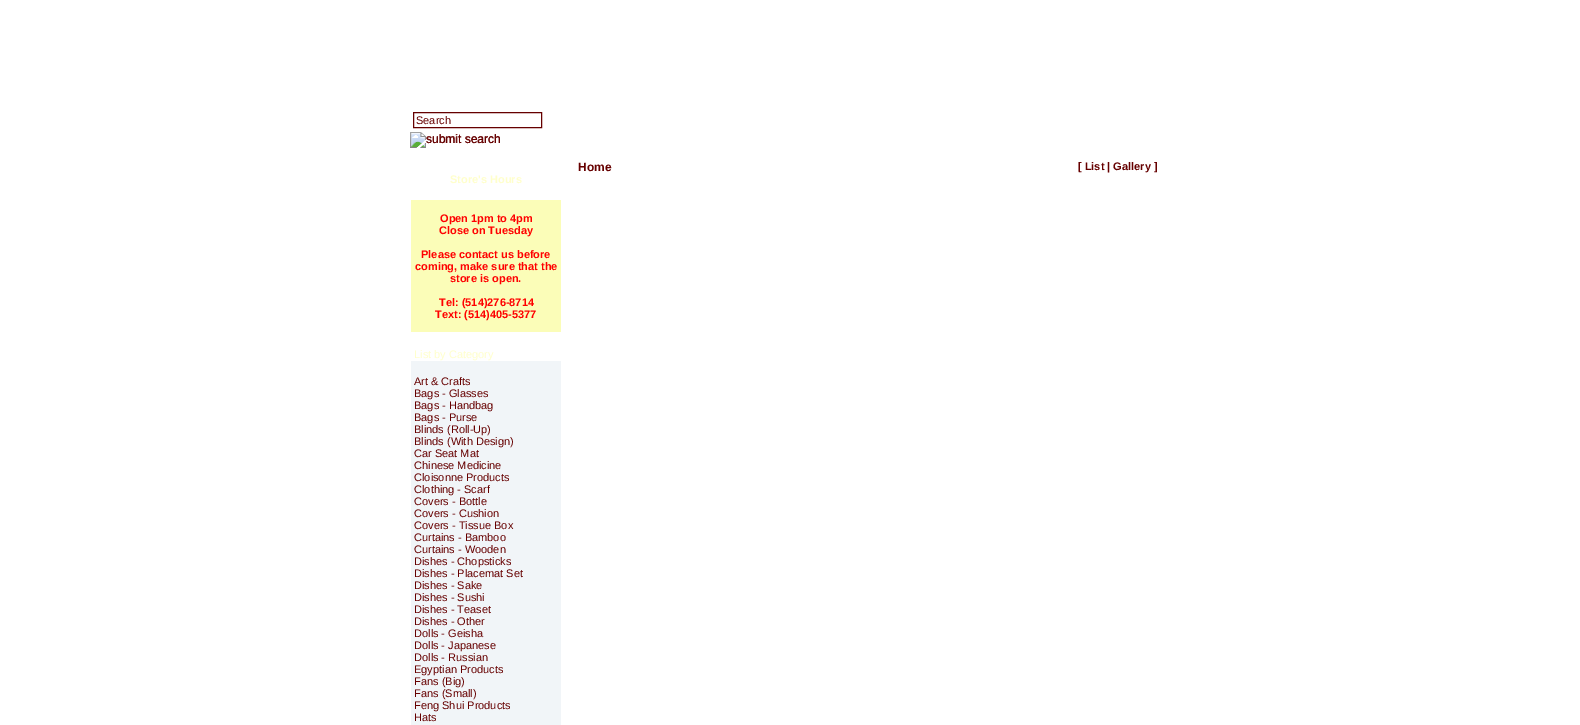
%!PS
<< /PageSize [1580 725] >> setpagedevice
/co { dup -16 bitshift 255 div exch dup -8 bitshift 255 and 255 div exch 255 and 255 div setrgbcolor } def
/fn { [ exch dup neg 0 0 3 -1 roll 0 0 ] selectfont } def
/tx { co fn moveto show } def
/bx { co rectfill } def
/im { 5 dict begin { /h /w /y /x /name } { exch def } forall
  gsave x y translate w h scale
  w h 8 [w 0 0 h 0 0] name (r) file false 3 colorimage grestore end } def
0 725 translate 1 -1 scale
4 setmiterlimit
0 0 1580 725 16#FFFFFF bx
16#660000 co
413.5 112.5 128 15 rectstroke
(media/1.raw) 410 132 90 16 im
411 200 150 132 16#FBFDB8 bx
411 361 150 364 16#F1F5F8 bx
(Search) 416 124 /LiberationSans-Regular 11 16#660000 tx
(submit search) 426 143 /LiberationSans-Regular 12 16#660000 tx
(Home) 578 171 /LiberationSans-Bold 12 16#660000 tx
([ List | Gallery ]) 1078 170 /LiberationSans-Bold 11 16#660000 tx
(Store's Hours) 450 183 /LiberationSans-Bold 11 16#FFFFCC tx
(Open 1pm to 4pm) 440 222 /LiberationSans-Bold 11 16#FF0000 tx
(Close on Tuesday) 439 234 /LiberationSans-Bold 11 16#FF0000 tx
(Please contact us before) 421 258 /LiberationSans-Bold 11 16#FF0000 tx
(coming, make sure that the) 415 270 /LiberationSans-Bold 11 16#FF0000 tx
(store is open.) 450 282 /LiberationSans-Bold 11 16#FF0000 tx
(Tel: \(514\)276-8714) 439 306 /LiberationSans-Bold 11 16#FF0000 tx
(Text: \(514\)405-5377) 435 318 /LiberationSans-Bold 11 16#FF0000 tx
(List by Category) 414 358 /LiberationSans-Regular 11 16#FFFFCC tx
(Art & Crafts) 414 385 /LiberationSans-Regular 11 16#660000 tx
(Bags - Glasses) 414 397 /LiberationSans-Regular 11 16#660000 tx
(Bags - Handbag) 414 409 /LiberationSans-Regular 11 16#660000 tx
(Bags - Purse) 414 421 /LiberationSans-Regular 11 16#660000 tx
(Blinds \(Roll-Up\)) 414 433 /LiberationSans-Regular 11 16#660000 tx
(Blinds \(With Design\)) 414 445 /LiberationSans-Regular 11 16#660000 tx
(Car Seat Mat) 414 457 /LiberationSans-Regular 11 16#660000 tx
(Chinese Medicine) 414 469 /LiberationSans-Regular 11 16#660000 tx
(Cloisonne Products) 414 481 /LiberationSans-Regular 11 16#660000 tx
(Clothing - Scarf) 414 493 /LiberationSans-Regular 11 16#660000 tx
(Covers - Bottle) 414 505 /LiberationSans-Regular 11 16#660000 tx
(Covers - Cushion) 414 517 /LiberationSans-Regular 11 16#660000 tx
(Covers - Tissue Box) 414 529 /LiberationSans-Regular 11 16#660000 tx
(Curtains - Bamboo) 414 541 /LiberationSans-Regular 11 16#660000 tx
(Curtains - Wooden) 414 553 /LiberationSans-Regular 11 16#660000 tx
(Dishes - Chopsticks) 414 565 /LiberationSans-Regular 11 16#660000 tx
(Dishes - Placemat Set) 414 577 /LiberationSans-Regular 11 16#660000 tx
(Dishes - Sake) 414 589 /LiberationSans-Regular 11 16#660000 tx
(Dishes - Sushi) 414 601 /LiberationSans-Regular 11 16#660000 tx
(Dishes - Teaset) 414 613 /LiberationSans-Regular 11 16#660000 tx
(Dishes - Other) 414 625 /LiberationSans-Regular 11 16#660000 tx
(Dolls - Geisha) 414 637 /LiberationSans-Regular 11 16#660000 tx
(Dolls - Japanese) 414 649 /LiberationSans-Regular 11 16#660000 tx
(Dolls - Russian) 414 661 /LiberationSans-Regular 11 16#660000 tx
(Egyptian Products) 414 673 /LiberationSans-Regular 11 16#660000 tx
(Fans \(Big\)) 414 685 /LiberationSans-Regular 11 16#660000 tx
(Fans \(Small\)) 414 697 /LiberationSans-Regular 11 16#660000 tx
(Feng Shui Products) 414 709 /LiberationSans-Regular 11 16#660000 tx
(Hats) 414 721 /LiberationSans-Regular 11 16#660000 tx
showpage
